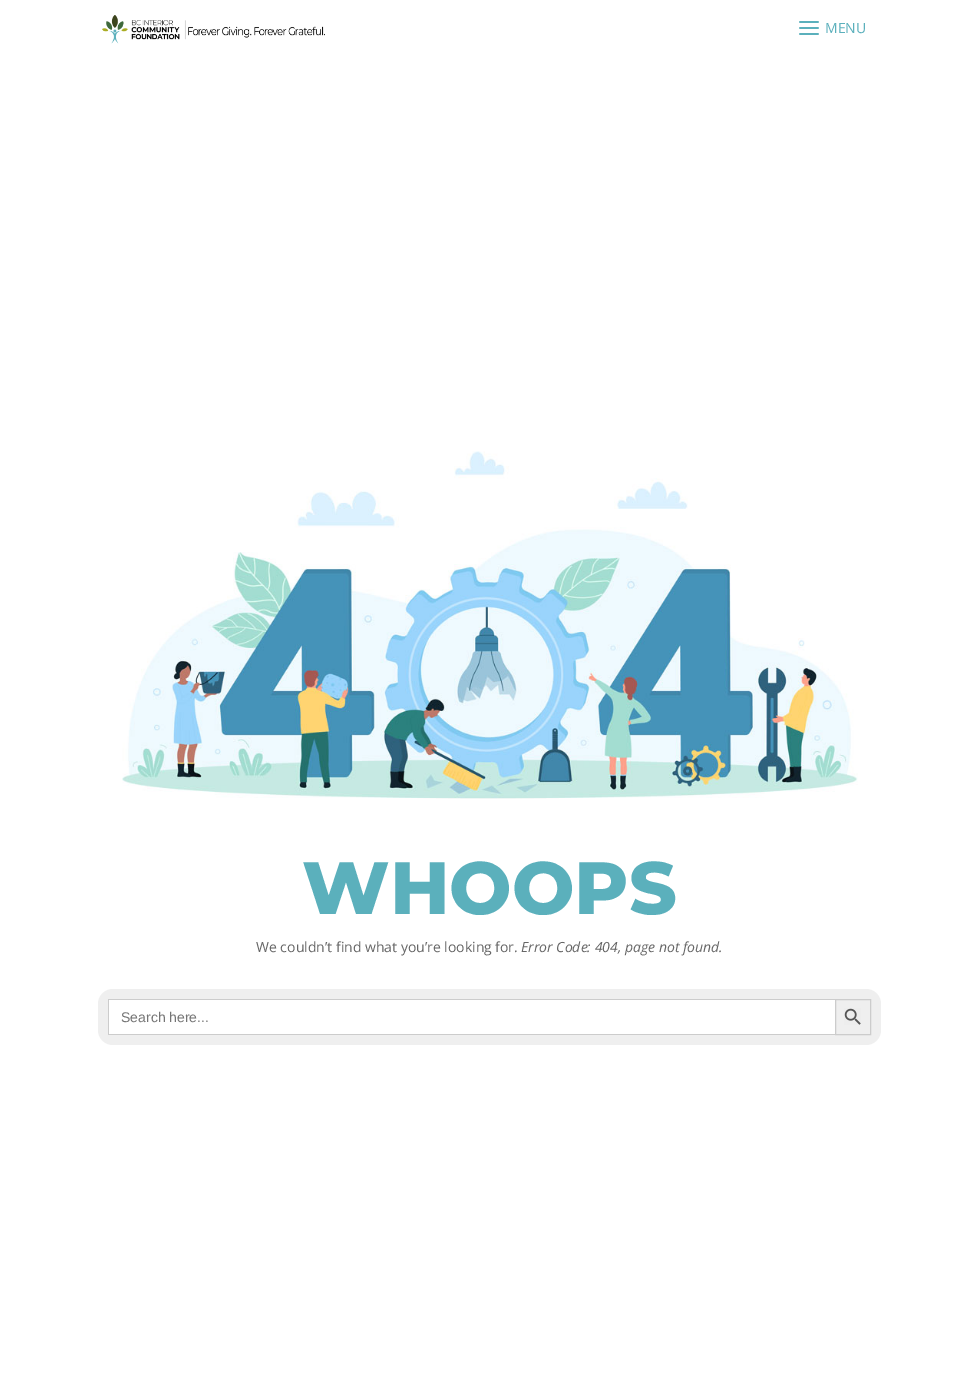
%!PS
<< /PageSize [979 1389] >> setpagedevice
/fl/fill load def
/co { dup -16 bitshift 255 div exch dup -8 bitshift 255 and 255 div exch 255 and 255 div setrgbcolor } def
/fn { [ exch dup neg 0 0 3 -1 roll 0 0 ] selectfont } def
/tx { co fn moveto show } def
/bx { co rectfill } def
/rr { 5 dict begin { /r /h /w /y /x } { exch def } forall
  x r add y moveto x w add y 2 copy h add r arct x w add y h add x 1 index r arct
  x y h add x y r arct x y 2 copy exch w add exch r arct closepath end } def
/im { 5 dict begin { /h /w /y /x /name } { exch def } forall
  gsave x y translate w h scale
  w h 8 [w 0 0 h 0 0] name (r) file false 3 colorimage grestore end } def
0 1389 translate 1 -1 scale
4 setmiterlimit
0 0 979 1389 16#FFFFFF bx
(media/1.raw) 102 15 223 29 im
(media/2.raw) 799 21 20 14 im
(media/3.raw) 122 451 736 348 im
16#EFEFEF co
98 989 783 56 15 rr fl
109 1000 726 34 16#FFFFFF bx
108 999 727 1 16#CCCCCC bx
108 1034 727 1 16#CCCCCC bx
108 999 1 36 16#CCCCCC bx
835.5 999.5 35 35 rectstroke
(media/4.raw) 844 1008 17 17 im
(MENU) 825 33 /OpenSans-Regular 14 16#5BB0BC tx
(WHOOPS) 302 914 /Montserrat-ExtraBold 74 16#5BB0BC tx
(We couldn’t find what you’re looking for.) 256 952 /OpenSans-Regular 14 16#666666 tx
(Error Code: 404, page not found.) 521 952 /OpenSans-Italic 14 16#666666 tx
(Search here...) 121 1022 /LiberationSans-Regular 14 16#757575 tx
showpage
